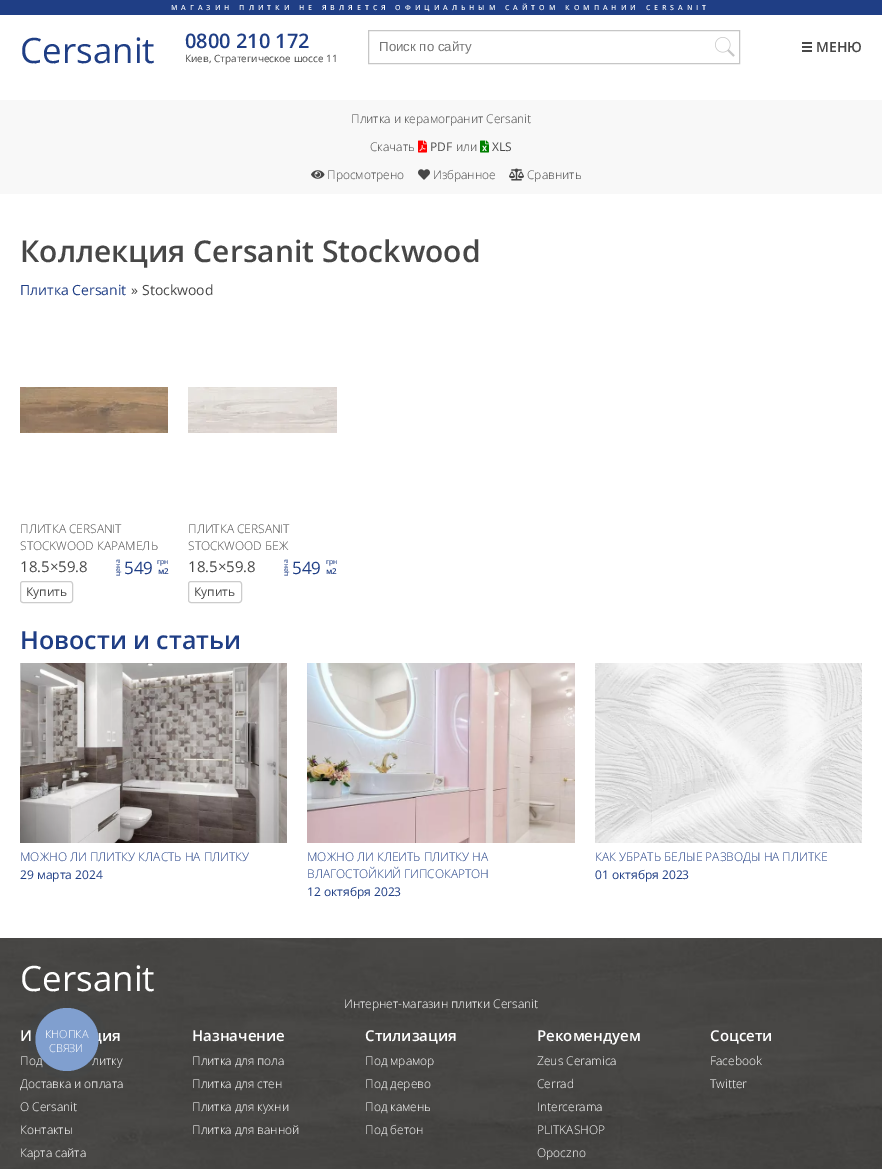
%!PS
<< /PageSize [882 1169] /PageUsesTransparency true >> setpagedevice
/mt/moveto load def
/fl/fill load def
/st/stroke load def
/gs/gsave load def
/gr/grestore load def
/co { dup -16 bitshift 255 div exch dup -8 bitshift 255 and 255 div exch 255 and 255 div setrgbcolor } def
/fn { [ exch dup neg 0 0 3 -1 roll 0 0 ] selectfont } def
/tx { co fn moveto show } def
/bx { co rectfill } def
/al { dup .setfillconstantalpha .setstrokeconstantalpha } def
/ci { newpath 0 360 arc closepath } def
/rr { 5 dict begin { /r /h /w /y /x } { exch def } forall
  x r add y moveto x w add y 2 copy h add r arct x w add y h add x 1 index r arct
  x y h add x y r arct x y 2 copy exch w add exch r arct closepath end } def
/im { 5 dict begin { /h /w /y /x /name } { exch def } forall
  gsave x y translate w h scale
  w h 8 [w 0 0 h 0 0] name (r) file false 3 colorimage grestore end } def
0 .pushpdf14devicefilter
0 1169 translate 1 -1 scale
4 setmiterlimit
0 0 882 1169 16#FFFFFF bx
0 0 882 15 16#1F3E85 bx
16#C6C6C6 co
368.5 30.5 371 33 rectstroke
(media/1.raw) 715 37 20 20 im
802 42 10 2 16#474747 bx
802 46 10 2 16#474747 bx
802 50 10 2 16#474747 bx
0 100 882 94 16#F8F8F8 bx
(media/2.raw) 418 140 9 13 im
(media/3.raw) 480 140 9 13 im
(media/4.raw) 311 170 14 9 im
(media/5.raw) 418 169 12 11 im
(media/6.raw) 509 168 15 13 im
(media/7.raw) 20 387 148 46 im
16#CCCCCC co
20.5 581.5 52 21 2.5 rr st
(media/8.raw) 188 387 149 46 im
188.5 581.5 53 21 2.5 rr st
(media/9.raw) 20 663 267 180 im
(media/10.raw) 307 663 268 180 im
(media/11.raw) 595 663 267 180 im
(media/12.raw) 0 938 882 231 im
0.06 al
16#2A405D co
67 1039.5 39.5 ci fl
/OpenSans-SemiBold 7 fn
1 al
16#FFFFFF co
171 10 mt 4 0 (МАГАЗИН ПЛИТКИ НЕ ЯВЛЯЕТСЯ ОФИЦИАЛЬНЫМ САЙТОМ КОМПАНИИ CERSANIT) ashow
(Cersanit) 20 63 /OpenSans-Regular 35 16#1F3E85 tx
(0800 210 172) 185 48 /OpenSans-SemiBold 20 16#1F3E85 tx
(Киев, Стратегическое шоссе 11) 185 62 /OpenSans-Regular 10 16#474747 tx
(Поиск по сайту) 379 51 /LiberationSans-Regular 13.25 16#757575 tx
(МЕНЮ) 816 52 /OpenSans-SemiBold 14 16#474747 tx
(Плитка и керамогранит Cersanit) 351 123 /OpenSans-Light 12 16#474747 tx
(Скачать) 370 151 /OpenSans-Light 12 16#474747 tx
(PDF) 430 151 /OpenSans-Regular 12 16#474747 tx
(или) 456 151 /OpenSans-Light 12 16#474747 tx
(XLS) 492 151 /OpenSans-Regular 12 16#474747 tx
(Просмотрено) 327 179 /OpenSans-Light 12 16#474747 tx
(Избранное) 433 179 /OpenSans-Light 12 16#474747 tx
(Сравнить) 527 179 /OpenSans-Light 12 16#474747 tx
(Коллекция Cersanit Stockwood) 20 262 /OpenSans-SemiBold 30 16#474747 tx
(Плитка Cersanit) 20 295 /OpenSans-Regular 14 16#1F3E85 tx
(») 131 295 /OpenSans-Regular 14 16#474747 tx
(Stockwood) 142 295 /OpenSans-Regular 14 16#474747 tx
(ПЛИТКА CERSANIT) 20 533 /OpenSans-Light 12 16#474747 tx
(STOCKWOOD КАРАМЕЛЬ) 20 550 /OpenSans-Light 12 16#474747 tx
(18.5×59.8) 20 572 /OpenSans-Regular 15 16#474747 tx
/OpenSans-Regular 7 fn
16#1F3E85 co
gs 120 576 translate -90 rotate 0 0 mt (цена) show gr
(549) 124 574 /OpenSans-Regular 17 16#1F3E85 tx
(грн) 157 564 /OpenSans-Regular 7 16#1F3E85 tx
(м2) 158 574 /OpenSans-SemiBold 8 16#1F3E85 tx
(Купить) 26 596 /OpenSans-Regular 12 16#474747 tx
(ПЛИТКА CERSANIT) 188 533 /OpenSans-Light 12 16#474747 tx
(STOCKWOOD БЕЖ) 188 550 /OpenSans-Light 12 16#474747 tx
(18.5×59.8) 188 572 /OpenSans-Regular 15 16#474747 tx
/OpenSans-Regular 7 fn
16#1F3E85 co
gs 288 576 translate -90 rotate 0 0 mt (цена) show gr
(549) 292 574 /OpenSans-Regular 17 16#1F3E85 tx
(грн) 326 564 /OpenSans-Regular 7 16#1F3E85 tx
(м2) 326 574 /OpenSans-SemiBold 8 16#1F3E85 tx
(Купить) 194 596 /OpenSans-Regular 12 16#474747 tx
(Новости и статьи) 20 649 /OpenSans-SemiBold 25 16#1F3E85 tx
(МОЖНО ЛИ ПЛИТКУ КЛАСТЬ НА ПЛИТКУ) 20 861 /OpenSans-Light 12 16#1F3E85 tx
(29 марта 2024) 20 879 /OpenSans-Regular 12 16#1F3E85 tx
(МОЖНО ЛИ КЛЕИТЬ ПЛИТКУ НА) 307 861 /OpenSans-Light 12 16#1F3E85 tx
(ВЛАГОСТОЙКИЙ ГИПСОКАРТОН) 307 878 /OpenSans-Light 12 16#1F3E85 tx
(12 октября 2023) 307 896 /OpenSans-Regular 12 16#1F3E85 tx
(КАК УБРАТЬ БЕЛЫЕ РАЗВОДЫ НА ПЛИТКЕ) 595 861 /OpenSans-Light 12 16#1F3E85 tx
(01 октября 2023) 595 879 /OpenSans-Regular 12 16#1F3E85 tx
(Cersanit) 20 991 /OpenSans-Regular 35 16#FFFFFF tx
(Интернет-магазин плитки Cersanit) 344 1008 /OpenSans-Light 12 16#FFFFFF tx
(И) 20 1041 /OpenSans-SemiBold 15 16#FFFFFF tx
(ция) 92 1041 /OpenSans-SemiBold 15 16#FFFFFF tx
(Под) 20 1065 /OpenSans-Light 12 16#FFFFFF tx
(литку) 92 1065 /OpenSans-Light 12 16#FFFFFF tx
(Доставка и оплата) 20 1088 /OpenSans-Light 12 16#FFFFFF tx
(О Cersanit) 20 1111 /OpenSans-Light 12 16#FFFFFF tx
(Контакты) 20 1134 /OpenSans-Light 12 16#FFFFFF tx
(Карта сайта) 20 1157 /OpenSans-Light 12 16#FFFFFF tx
(Назначение) 192 1041 /OpenSans-SemiBold 15 16#FFFFFF tx
(Плитка для пола) 192 1065 /OpenSans-Light 12 16#FFFFFF tx
(Плитка для стен) 192 1088 /OpenSans-Light 12 16#FFFFFF tx
(Плитка для кухни) 192 1111 /OpenSans-Light 12 16#FFFFFF tx
(Плитка для ванной) 192 1134 /OpenSans-Light 12 16#FFFFFF tx
(Стилизация) 365 1041 /OpenSans-SemiBold 15 16#FFFFFF tx
(Под мрамор) 365 1065 /OpenSans-Light 12 16#FFFFFF tx
(Под дерево) 365 1088 /OpenSans-Light 12 16#FFFFFF tx
(Под камень) 365 1111 /OpenSans-Light 12 16#FFFFFF tx
(Под бетон) 365 1134 /OpenSans-Light 12 16#FFFFFF tx
(Рекомендуем) 537 1041 /OpenSans-SemiBold 15 16#FFFFFF tx
(Zeus Ceramica) 537 1065 /OpenSans-Light 12 16#FFFFFF tx
(Cerrad) 537 1088 /OpenSans-Light 12 16#FFFFFF tx
(Intercerama) 537 1111 /OpenSans-Light 12 16#FFFFFF tx
(PLITKASHOP) 537 1134 /OpenSans-Light 12 16#FFFFFF tx
(Opoczno) 537 1157 /OpenSans-Light 12 16#FFFFFF tx
(Соцсети) 710 1041 /OpenSans-SemiBold 15 16#FFFFFF tx
(Facebook) 710 1065 /OpenSans-Light 12 16#FFFFFF tx
(Twitter) 710 1088 /OpenSans-Light 12 16#FFFFFF tx
16#809FCF co
67 1039.5 31.5 ci fl
(КНОПКА) 45 1038 /OpenSans-Light 11 16#FFFFFF tx
(СВЯЗИ) 49 1052 /OpenSans-Light 11 16#FFFFFF tx
.poppdf14devicefilter showpage
